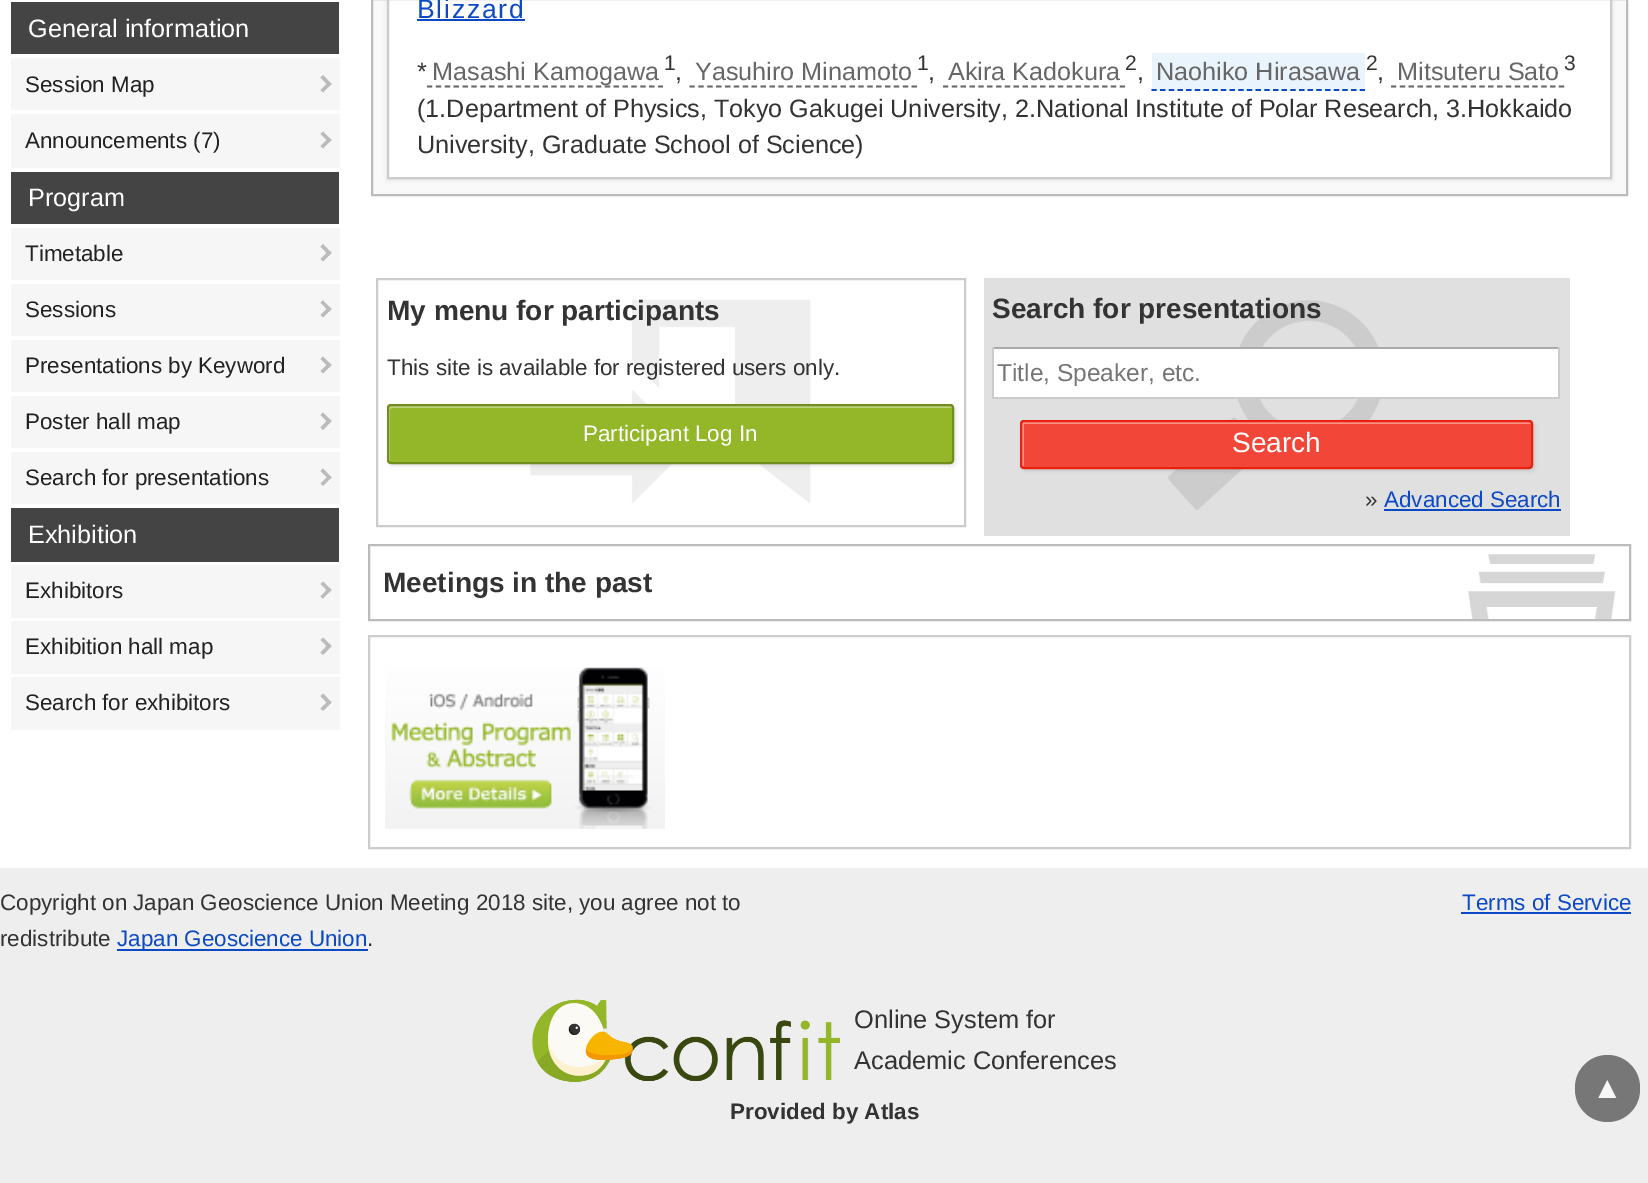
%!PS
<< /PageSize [1648 1183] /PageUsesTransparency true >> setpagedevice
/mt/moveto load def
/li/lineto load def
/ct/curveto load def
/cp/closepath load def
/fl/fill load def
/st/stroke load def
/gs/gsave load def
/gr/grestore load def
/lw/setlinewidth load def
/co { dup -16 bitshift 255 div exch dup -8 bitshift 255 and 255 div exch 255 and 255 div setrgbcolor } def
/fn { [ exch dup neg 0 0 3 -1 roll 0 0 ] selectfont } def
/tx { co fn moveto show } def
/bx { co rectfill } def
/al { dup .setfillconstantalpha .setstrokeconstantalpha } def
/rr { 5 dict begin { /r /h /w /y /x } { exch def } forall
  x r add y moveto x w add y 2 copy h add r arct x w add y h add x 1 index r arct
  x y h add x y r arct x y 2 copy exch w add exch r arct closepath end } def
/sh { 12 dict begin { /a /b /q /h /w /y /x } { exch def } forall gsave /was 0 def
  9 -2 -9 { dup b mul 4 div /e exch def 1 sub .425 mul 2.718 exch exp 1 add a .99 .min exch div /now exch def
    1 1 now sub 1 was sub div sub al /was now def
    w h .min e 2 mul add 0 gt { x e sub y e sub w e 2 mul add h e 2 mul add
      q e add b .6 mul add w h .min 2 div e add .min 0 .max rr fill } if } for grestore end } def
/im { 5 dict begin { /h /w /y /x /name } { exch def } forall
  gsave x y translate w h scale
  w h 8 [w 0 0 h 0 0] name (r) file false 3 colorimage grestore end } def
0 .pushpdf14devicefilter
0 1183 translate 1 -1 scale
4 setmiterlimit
0 0 1648 1183 16#EEEEEE bx
0 0 1648 868 16#FFFFFF bx
11 2 328 52 16#444444 bx
11 58 329 52 16#F6F6F6 bx
16#BBBBBB co
323 75 mt 331.5 84 li 329 86.5 li 320.5 77.5 li cp fl
329 81.5 mt 331.5 84 li 323 92.5 li 320.5 90 li cp fl
11 114 329 54 16#F6F6F6 bx
16#BBBBBB co
323 131.5 mt 331.5 140 li 329 142.5 li 320.5 134 li cp fl
329 137.5 mt 331.5 140 li 323 148.5 li 320.5 146 li cp fl
11 172 328 52 16#444444 bx
11 228 329 52 16#F6F6F6 bx
16#BBBBBB co
323 244 mt 331.5 253 li 329 255.5 li 320.5 246.5 li cp fl
329 250.5 mt 331.5 253 li 323 261.5 li 320.5 259 li cp fl
11 284 329 52 16#F6F6F6 bx
16#BBBBBB co
323 300.5 mt 331.5 309 li 329 311.5 li 320.5 302.5 li cp fl
329 306.5 mt 331.5 309 li 323 317.5 li 320.5 315 li cp fl
11 340 329 52 16#F6F6F6 bx
16#BBBBBB co
323 356.5 mt 331.5 365 li 329 367.5 li 320.5 359 li cp fl
329 362.5 mt 331.5 365 li 323 373.5 li 320.5 371 li cp fl
11 396 329 52 16#F6F6F6 bx
16#BBBBBB co
323 412.5 mt 331.5 421 li 329 423.5 li 320.5 415 li cp fl
329 418.5 mt 331.5 421 li 323 430 li 320.5 427.5 li cp fl
11 452 329 52 16#F6F6F6 bx
16#BBBBBB co
323 468.5 mt 331.5 477.5 li 329 479.5 li 320.5 471 li cp fl
329 475 mt 331.5 477.5 li 323 486 li 320.5 483.5 li cp fl
11 508 328 54 16#444444 bx
11 565 329 53 16#F6F6F6 bx
16#BBBBBB co
323 581.5 mt 331.5 590 li 329 592.5 li 320.5 584 li cp fl
329 587.5 mt 331.5 590 li 323 598.5 li 320.5 596.5 li cp fl
11 621 329 53 16#F6F6F6 bx
16#BBBBBB co
323 637.5 mt 331.5 646 li 329 648.5 li 320.5 640 li cp fl
329 643.5 mt 331.5 646 li 323 655 li 320.5 652.5 li cp fl
11 677 329 53 16#F6F6F6 bx
16#BBBBBB co
323 693.5 mt 331.5 702.5 li 329 705 li 320.5 696 li cp fl
329 700 mt 331.5 702.5 li 323 711 li 320.5 708.5 li cp fl
16#F9F9F9 co
372 -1 mt 1627 -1 li 1627 195 li 372 195 li cp gs fl gr
16#BBBBBB co
2 lw
st
16#000000 co
387 -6 1225 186 0 2 .1 sh
16#FFFFFF co
388 -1 mt 1611 -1 li 1611 178 li 388 178 li cp gs fl gr
16#CCCCCC co
st
417 19 108 2 16#0C49C5 bx
16#666666 co
1.8 lw
[5.25 3.64] 0 setdash
427 86.5 mt 663 86.5 li st
689.5 86.5 mt 917 86.5 li st
[5.25 3.59] 0 setdash
943 86.5 mt 1125 86.5 li st
1152 53 213 38 16#EAF4FC bx
16#0C49C5 co
[5.25 3.43] 0 setdash
1151.5 90 mt 1365 90 li st
16#666666 co
[5.25 3.59] 0 setdash
1391 86.5 mt 1564.5 86.5 li st
(media/1.raw) 530 299 281 205 im
16#CCCCCC co
2 lw
[] 0 setdash
377 279 588 247 rectstroke
16#000000 co
389 406 567 60 4 2 .1 sh
16#93B728 co
387 404 567 60 4 rr fl
16#BED47E co
392 408 mt 952 408 li 952 407 951 406 950 406 ct 391 406 li 390 406 389 407 389 408 ct 389 460 li 389 461 389 461 390 462 ct 390 410 li 390 409 391 408 392 408 ct cp fl
16#718D1F co
388 405 565 58 3 rr st
984 278 586 258 16#E0E0E0 bx
(media/2.raw) 1168 300 213 210 im
994 349 564 48 16#FFFFFF bx
992 347 567 2 16#AAAAAA bx
1558 347 2 52 16#CCCCCC bx
992 397 567 2 16#CCCCCC bx
992 347 2 52 16#CCCCCC bx
16#000000 co
1022 422 513 49 4 2 .1 sh
16#F24738 co
1020 420 513 49 4 rr fl
16#F79188 co
1026 424 mt 1531 424 li 1531 423 1530 422 1529 422 ct 1024 422 li 1023 422 1022 423 1022 424 ct 1022 465 li 1022 466 1023 467 1024 467 ct 1024 424 li cp fl
16#E8210F co
1021 421 511 47 3 rr st
1384 509 177 2 16#0C49C5 bx
(media/3.raw) 1468 554 148 65 im
16#BBBBBB co
369 545 1261 75 rectstroke
16#CCCCCC co
369 636 1261 212 rectstroke
(media/4.raw) 385 667 280 162 im
117 949 251 2 16#0C49C5 bx
1461 912 170 2 16#0C49C5 bx
(media/5.raw) 532 999 308 83 im
16#777777 co
1575 1055 65 67 32.5 rr fl
(General information) 28 37 /LiberationSans-Regular 25.2 16#FFFFFF tx
(Session Map) 25 92 /LiberationSans-Regular 22.4 16#222222 tx
(Announcements \(7\)) 25 148 /LiberationSans-Regular 22.4 16#222222 tx
(Program) 28 206 /LiberationSans-Regular 25.2 16#FFFFFF tx
(Timetable) 25 261 /LiberationSans-Regular 22.4 16#222222 tx
(Sessions) 25 317 /LiberationSans-Regular 22.4 16#222222 tx
(Presentations by Keyword) 25 373 /LiberationSans-Regular 22.4 16#222222 tx
(Poster hall map) 25 429 /LiberationSans-Regular 22.4 16#222222 tx
(Search for presentations) 25 485 /LiberationSans-Regular 22.4 16#222222 tx
(Exhibition) 28 543 /LiberationSans-Regular 25.2 16#FFFFFF tx
(Exhibitors) 25 598 /LiberationSans-Regular 22.4 16#222222 tx
(Exhibition hall map) 25 654 /LiberationSans-Regular 22.4 16#222222 tx
(Search for exhibitors) 25 710 /LiberationSans-Regular 22.4 16#222222 tx
/LiberationSans-Regular 26.5 fn
16#0C49C5 co
417 18 mt 1.75 0 (Blizzard) ashow
(*) 417 80 /LiberationSans-Regular 25.2 16#333333 tx
(Masashi Kamogawa) 432 80 /LiberationSans-Regular 25.2 16#666666 tx
(1) 664 70 /LiberationSans-Regular 21 16#333333 tx
(Yasuhiro Minamoto) 695 80 /LiberationSans-Regular 25.2 16#666666 tx
(1) 917 70 /LiberationSans-Regular 21 16#333333 tx
(Akira Kadokura) 948 80 /LiberationSans-Regular 25.2 16#666666 tx
(2) 1125 70 /LiberationSans-Regular 21 16#333333 tx
(Naohiko Hirasawa) 1156 80 /LiberationSans-Regular 25.2 16#666666 tx
(2) 1366 70 /LiberationSans-Regular 21 16#333333 tx
(Mitsuteru Sato) 1397 80 /LiberationSans-Regular 25.2 16#666666 tx
(3) 1564 70 /LiberationSans-Regular 21 16#333333 tx
(,) 675 80 /LiberationSans-Regular 25.2 16#333333 tx
(,) 928 80 /LiberationSans-Regular 25.2 16#333333 tx
(,) 1137 80 /LiberationSans-Regular 25.2 16#333333 tx
(,) 1377 80 /LiberationSans-Regular 25.2 16#333333 tx
(\(1.Department of Physics, Tokyo Gakugei University, 2.National Institute of Polar Research, 3.Hokkaido) 417 117 /LiberationSans-Regular 25.2 16#333333 tx
(University, Graduate School of Science\)) 417 153 /LiberationSans-Regular 25.2 16#333333 tx
(My menu for participants) 387 320 /LiberationSans-Bold 28 16#333333 tx
(This site is available for registered users only.) 387 375 /LiberationSans-Regular 22.4 16#333333 tx
(Participant Log In) 583 441 /LiberationSans-Regular 22.4 16#FFFFFF tx
(Search for presentations) 992 318 /LiberationSans-Bold 28 16#333333 tx
(Title, Speaker, etc.) 997 381 /LiberationSans-Regular 24.5 16#757575 tx
(Search) 1232 452 /LiberationSans-Regular 28 16#FFFFFF tx
(») 1365 507 /LiberationSans-Regular 22.4 16#333333 tx
(Advanced Search) 1384 507 /LiberationSans-Regular 22.4 16#0C49C5 tx
(Meetings in the past) 383 592 /LiberationSans-Bold 28 16#333333 tx
(Copyright on Japan Geoscience Union Meeting 2018 site, you agree not to) 0 910 /LiberationSans-Regular 22.4 16#333333 tx
(redistribute) 0 946 /LiberationSans-Regular 22.4 16#333333 tx
(Japan Geoscience Union) 117 946 /LiberationSans-Regular 22.4 16#0C49C5 tx
(.) 367 946 /LiberationSans-Regular 22.4 16#333333 tx
(Terms of Service) 1462 910 /LiberationSans-Regular 22.4 16#0C49C5 tx
(Online System for) 854 1028 /LiberationSans-Regular 25.4 16#333333 tx
(Academic Conferences) 854 1069 /LiberationSans-Regular 25.4 16#333333 tx
(Provided by Atlas) 730 1119 /LiberationSans-Bold 22.4 16#333333 tx
(▲) 1592 1098 /LiberationSans-Regular 31 16#F7F7F7 tx
.poppdf14devicefilter showpage
